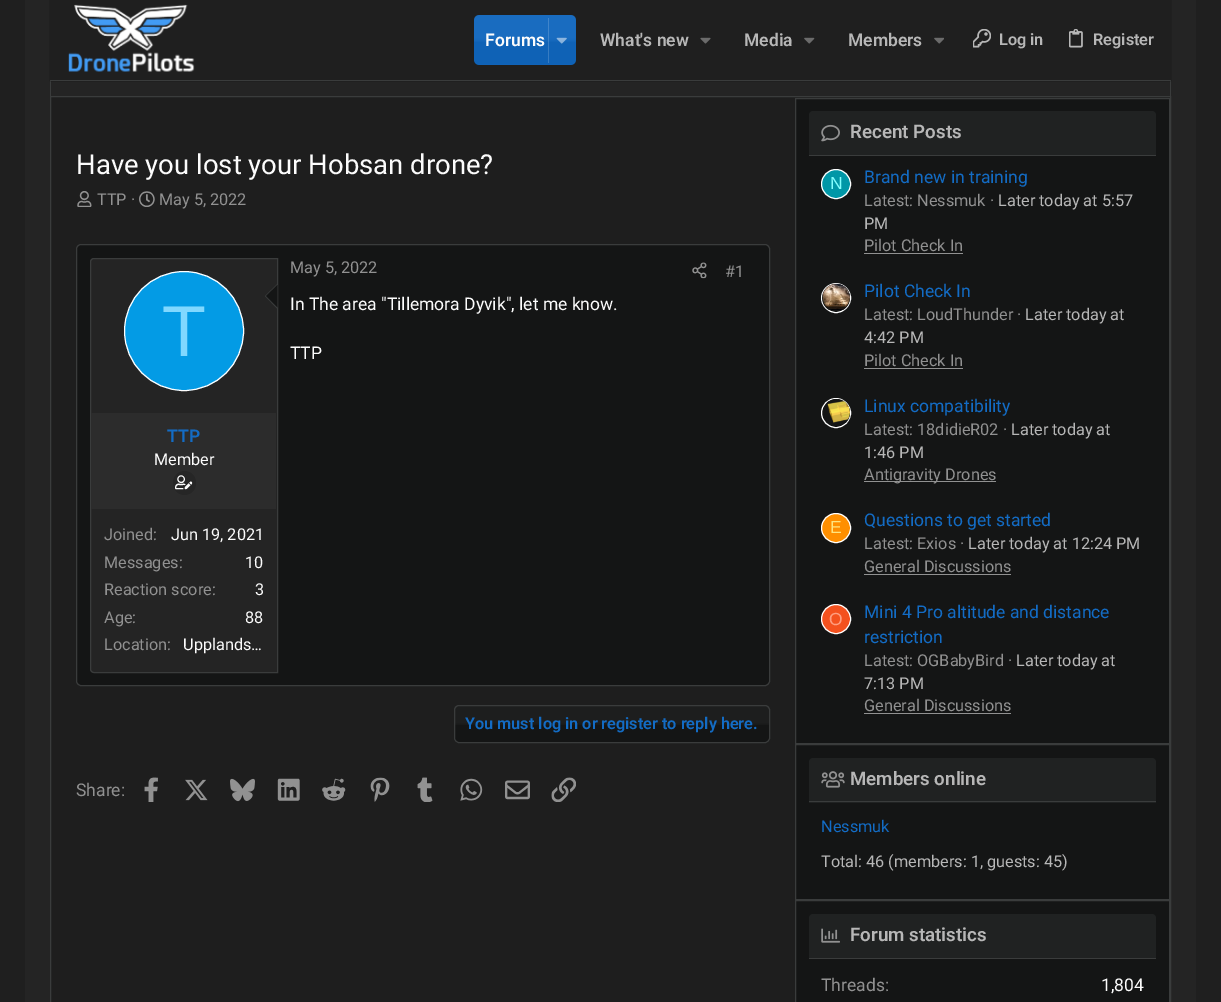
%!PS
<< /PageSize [1221 1002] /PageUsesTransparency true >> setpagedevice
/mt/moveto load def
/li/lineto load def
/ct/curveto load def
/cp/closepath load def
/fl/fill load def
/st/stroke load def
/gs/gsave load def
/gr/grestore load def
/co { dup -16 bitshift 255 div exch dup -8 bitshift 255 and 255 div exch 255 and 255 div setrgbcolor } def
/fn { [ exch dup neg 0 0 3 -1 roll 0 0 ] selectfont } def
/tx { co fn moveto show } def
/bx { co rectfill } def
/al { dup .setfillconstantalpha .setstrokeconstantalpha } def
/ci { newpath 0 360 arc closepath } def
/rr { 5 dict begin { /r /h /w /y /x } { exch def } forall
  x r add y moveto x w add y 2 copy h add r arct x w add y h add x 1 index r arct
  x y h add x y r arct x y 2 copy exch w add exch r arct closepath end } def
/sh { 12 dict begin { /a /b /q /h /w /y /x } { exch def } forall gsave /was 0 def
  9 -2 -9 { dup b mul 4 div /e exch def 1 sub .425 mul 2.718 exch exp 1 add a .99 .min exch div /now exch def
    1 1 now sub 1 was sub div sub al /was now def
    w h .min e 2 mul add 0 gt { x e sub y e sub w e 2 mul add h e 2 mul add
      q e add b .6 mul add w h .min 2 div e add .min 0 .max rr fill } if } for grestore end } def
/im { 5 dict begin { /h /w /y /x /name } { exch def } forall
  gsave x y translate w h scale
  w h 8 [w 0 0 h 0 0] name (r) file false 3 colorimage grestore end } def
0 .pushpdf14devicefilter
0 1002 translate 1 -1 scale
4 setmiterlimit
0 0 1221 1002 16#1F1F1F bx
25 0 1171 1002 16#242424 bx
16#3A3C3C co
58 32 mt 1164 32 li 1168 32 1171 36 1171 40 ct 1171 96 li 50 96 li 50 40 li 50 36 53 32 58 32 ct cp 58 34 mt 1164 34 li 1167 34 1170 37 1170 40 ct 1170 96 li 51 96 li 51 40 li 51 37 54 34 58 34 ct cp eofill
16#000000 co
50 0 1121 81 0 .5 .4 sh
50 0 1121 80 16#1F1F1F bx
50 80 1121 1 16#3A3C3C bx
(media/1.raw) 68 4 127 68 im
16#1066BD co
474 15 102 50 5 rr fl
(media/2.raw) 474 15 102 50 im
0.17 al
548 18 1 45 16#FFFFFF bx
1 al
(media/3.raw) 556 37 11 7 im
(media/4.raw) 700 37 11 7 im
(media/5.raw) 804 37 11 7 im
(media/6.raw) 934 37 10 7 im
(media/7.raw) 973 29 18 19 im
(media/8.raw) 1069 29 14 19 im
16#1E1E1E co
50.5 96.5 mt 1170.5 96.5 li 1170.5 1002.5 li 50.5 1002.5 li cp gs fl gr
16#3A3C3C co
st
(media/9.raw) 77 191 15 16 im
(media/10.raw) 139 191 16 16 im
16#141515 co
76.5 244.5 693 441 4.5 rr gs fl gr
16#3A3C3C co
st
16#242424 co
94 258.5 mt 277.5 258.5 li 277.5 672.5 li 94 672.5 li 92 672.5 90.5 671 90.5 669 ct 90.5 262 li 90.5 260 92 258.5 94 258.5 ct cp gs fl gr
16#3A3C3C co
st
277.5 284 mt 277.5 309 li 265 296 li cp fl
16#141515 co
277.5 285 mt 277.5 307.5 li 266 296 li cp fl
16#039BE5 co
184 331 59.5 ci gs fl gr
16#FFFFFF co
st
91 413 185 96 16#2C2C2C bx
16#262626 co
173 471 23 24 11.5 rr fl
(media/11.raw) 175 475 18 15 im
(media/12.raw) 692 262 15 17 im
16#141515 co
454 705 316 38 5 rr fl
(media/13.raw) 454 705 316 20 im
16#3A3C3C co
454.5 705.5 315 37 4.5 rr st
(media/14.raw) 144 777 14 25 im
(media/15.raw) 185 779 23 22 im
(media/16.raw) 230 778 25 24 im
(media/17.raw) 277 778 23 23 im
(media/18.raw) 322 778 24 23 im
(media/19.raw) 370 777 20 25 im
(media/20.raw) 417 777 16 25 im
(media/21.raw) 460 778 23 23 im
(media/22.raw) 505 780 25 20 im
(media/23.raw) 551 777 25 25 im
16#141515 co
795.5 98.5 mt 1169.5 98.5 li 1169.5 743.5 li 795.5 743.5 li cp gs fl gr
16#3A3C3C co
st
16#202222 co
813 111 mt 1152 111 li 1154 111 1156 113 1156 115 ct 1156 156 li 809 156 li 809 115 li 809 113 811 111 813 111 ct cp fl
809 155 347 1 16#3A3C3C bx
(media/24.raw) 821 124 19 18 im
16#0097A7 co
836 184 14.5 ci gs fl gr
16#FFFFFF co
st
864 253 99 1 16#919191 bx
16#FFFFFF co
836 298 14.5 ci st
16#141515 co
836.5 297.5 13.5 ci fl
(media/25.raw) 822 283 28 27 im
864 368 99 1 16#919191 bx
16#FFFFFF co
836 413 14.5 ci st
16#141515 co
836.5 412.5 13.5 ci fl
(media/26.raw) 827 401 23 22 im
864 481 132 1 16#919191 bx
16#FF8F00 co
836 528 14.5 ci gs fl gr
16#FFFFFF co
st
864 574 147 1 16#919191 bx
16#F4511E co
836 619 14.5 ci gs fl gr
16#FFFFFF co
st
864 713 147 1 16#919191 bx
16#141515 co
795.5 744.5 mt 1169.5 744.5 li 1169.5 899.5 li 795.5 899.5 li cp gs fl gr
16#3A3C3C co
st
16#202222 co
813 758 mt 1152 758 li 1154 758 1156 760 1156 762 ct 1156 803 li 809 803 li 809 762 li 809 760 811 758 813 758 ct cp fl
809 801 347 1 16#3A3C3C bx
(media/27.raw) 821 771 24 17 im
16#141515 co
795.5 900.5 mt 1169.5 900.5 li 1169.5 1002.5 li 795.5 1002.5 li cp gs fl gr
16#3A3C3C co
st
16#202222 co
813 914 mt 1152 914 li 1154 914 1156 916 1156 918 ct 1156 959 li 809 959 li 809 918 li 809 916 811 914 813 914 ct cp fl
809 958 347 1 16#3A3C3C bx
(media/28.raw) 821 928 19 15 im
(Forums) 485 46 /Roboto-SemiBold 17.5 16#FCFCFC tx
(What's new) 600 46 /Roboto-SemiBold 17.5 16#B7B7B7 tx
(Media) 744 46 /Roboto-SemiBold 17.5 16#B7B7B7 tx
(Members) 848 46 /Roboto-SemiBold 17.5 16#B7B7B7 tx
(Log in) 999 45 /Roboto-SemiBold 16.25 16#B7B7B7 tx
(Register) 1093 45 /Roboto-SemiBold 16.25 16#B7B7B7 tx
(Have you lost your Hobsan drone?) 76 174 /Roboto-Regular 27.5 16#FCFCFC tx
(TTP ·) 97 205 /Roboto-Regular 16.25 16#919191 tx
(May 5, 2022) 159 205 /Roboto-Regular 16.25 16#919191 tx
(T) 162 356 /LiberationSans-Regular 72 16#80D8FF tx
(TTP) 167 442 /Roboto-SemiBold 17.5 16#136CC5 tx
(Member) 154 465 /Roboto-Regular 16.25 16#FCFCFC tx
(Joined:) 104 540 /Roboto-Regular 16.25 16#919191 tx
(Jun 19, 2021) 171 540 /Roboto-Regular 16.25 16#FCFCFC tx
(Messages:) 104 568 /Roboto-Regular 16.25 16#919191 tx
(10) 245 568 /Roboto-Regular 16.25 16#FCFCFC tx
(Reaction score:) 104 595 /Roboto-Regular 16.25 16#919191 tx
(3) 255 595 /Roboto-Regular 16.25 16#FCFCFC tx
(Age:) 104 623 /Roboto-Regular 16.25 16#919191 tx
(88) 245 623 /Roboto-Regular 16.25 16#FCFCFC tx
(Location:) 104 650 /Roboto-Regular 16.25 16#919191 tx
(Upplands…) 183 650 /Roboto-Regular 16.25 16#FCFCFC tx
(May 5, 2022) 290 273 /Roboto-Regular 16.25 16#919191 tx
(#1) 725 277 /Roboto-Regular 16.25 16#919191 tx
(In The area "Tillemora Dyvik", let me know.) 290 310 /Roboto-Regular 17.5 16#FCFCFC tx
(TTP) 290 359 /Roboto-Regular 17.5 16#FCFCFC tx
(You must log in or register to reply here.) 465 729 /Roboto-SemiBold 16.25 16#136CC5 tx
(Share:) 76 796 /Roboto-Regular 17.5 16#919191 tx
(Recent Posts) 850 138 /Roboto-SemiBold 18.75 16#B7B7B7 tx
(N) 830 189 /LiberationSans-Regular 17.5 16#84FFFF tx
(Brand new in training) 864 183 /Roboto-Regular 17.5 16#136CC5 tx
(Latest: Nessmuk ·) 864 206 /Roboto-Regular 16.25 16#919191 tx
(Later today at 5:57) 998 206 /Roboto-Regular 16.25 16#B7B7B7 tx
(PM) 864 229 /Roboto-Regular 16.25 16#B7B7B7 tx
(Pilot Check In) 864 251 /Roboto-Regular 16.25 16#919191 tx
(Pilot Check In) 864 297 /Roboto-Regular 17.5 16#136CC5 tx
(Latest: LoudThunder ·) 864 320 /Roboto-Regular 16.25 16#919191 tx
(Later today at) 1025 320 /Roboto-Regular 16.25 16#B7B7B7 tx
(4:42 PM) 864 343 /Roboto-Regular 16.25 16#B7B7B7 tx
(Pilot Check In) 864 366 /Roboto-Regular 16.25 16#919191 tx
(Linux compatibility) 864 412 /Roboto-Regular 17.5 16#136CC5 tx
(Latest: 18didieR02 ·) 864 435 /Roboto-Regular 16.25 16#919191 tx
(Later today at) 1011 435 /Roboto-Regular 16.25 16#B7B7B7 tx
(1:46 PM) 864 458 /Roboto-Regular 16.25 16#B7B7B7 tx
(Antigravity Drones) 864 480 /Roboto-Regular 16.25 16#919191 tx
(E) 830 533 /LiberationSans-Regular 17.5 16#FFE57F tx
(Questions to get started) 864 526 /Roboto-Regular 17.5 16#136CC5 tx
(Latest: Exios ·) 864 549 /Roboto-Regular 16.25 16#919191 tx
(Later today at 12:24 PM) 968 549 /Roboto-Regular 16.25 16#B7B7B7 tx
(General Discussions) 864 572 /Roboto-Regular 16.25 16#919191 tx
(O) 829 625 /LiberationSans-Regular 17.5 16#FF9E80 tx
(Mini 4 Pro altitude and distance) 864 618 /Roboto-Regular 17.5 16#136CC5 tx
(restriction) 864 643 /Roboto-Regular 17.5 16#136CC5 tx
(Latest: OGBabyBird ·) 864 666 /Roboto-Regular 16.25 16#919191 tx
(Later today at) 1016 666 /Roboto-Regular 16.25 16#B7B7B7 tx
(7:13 PM) 864 689 /Roboto-Regular 16.25 16#B7B7B7 tx
(General Discussions) 864 711 /Roboto-Regular 16.25 16#919191 tx
(Members online) 850 785 /Roboto-SemiBold 18.75 16#B7B7B7 tx
(Nessmuk) 821 832 /Roboto-Regular 16.25 16#136CC5 tx
(Total: 46 \(members: 1, guests: 45\)) 821 867 /Roboto-Regular 16.25 16#B7B7B7 tx
(Forum statistics) 850 941 /Roboto-SemiBold 18.75 16#B7B7B7 tx
(Threads:) 821 991 /Roboto-Regular 17.5 16#919191 tx
(1,804) 1101 991 /Roboto-Regular 17.5 16#FCFCFC tx
.poppdf14devicefilter showpage
